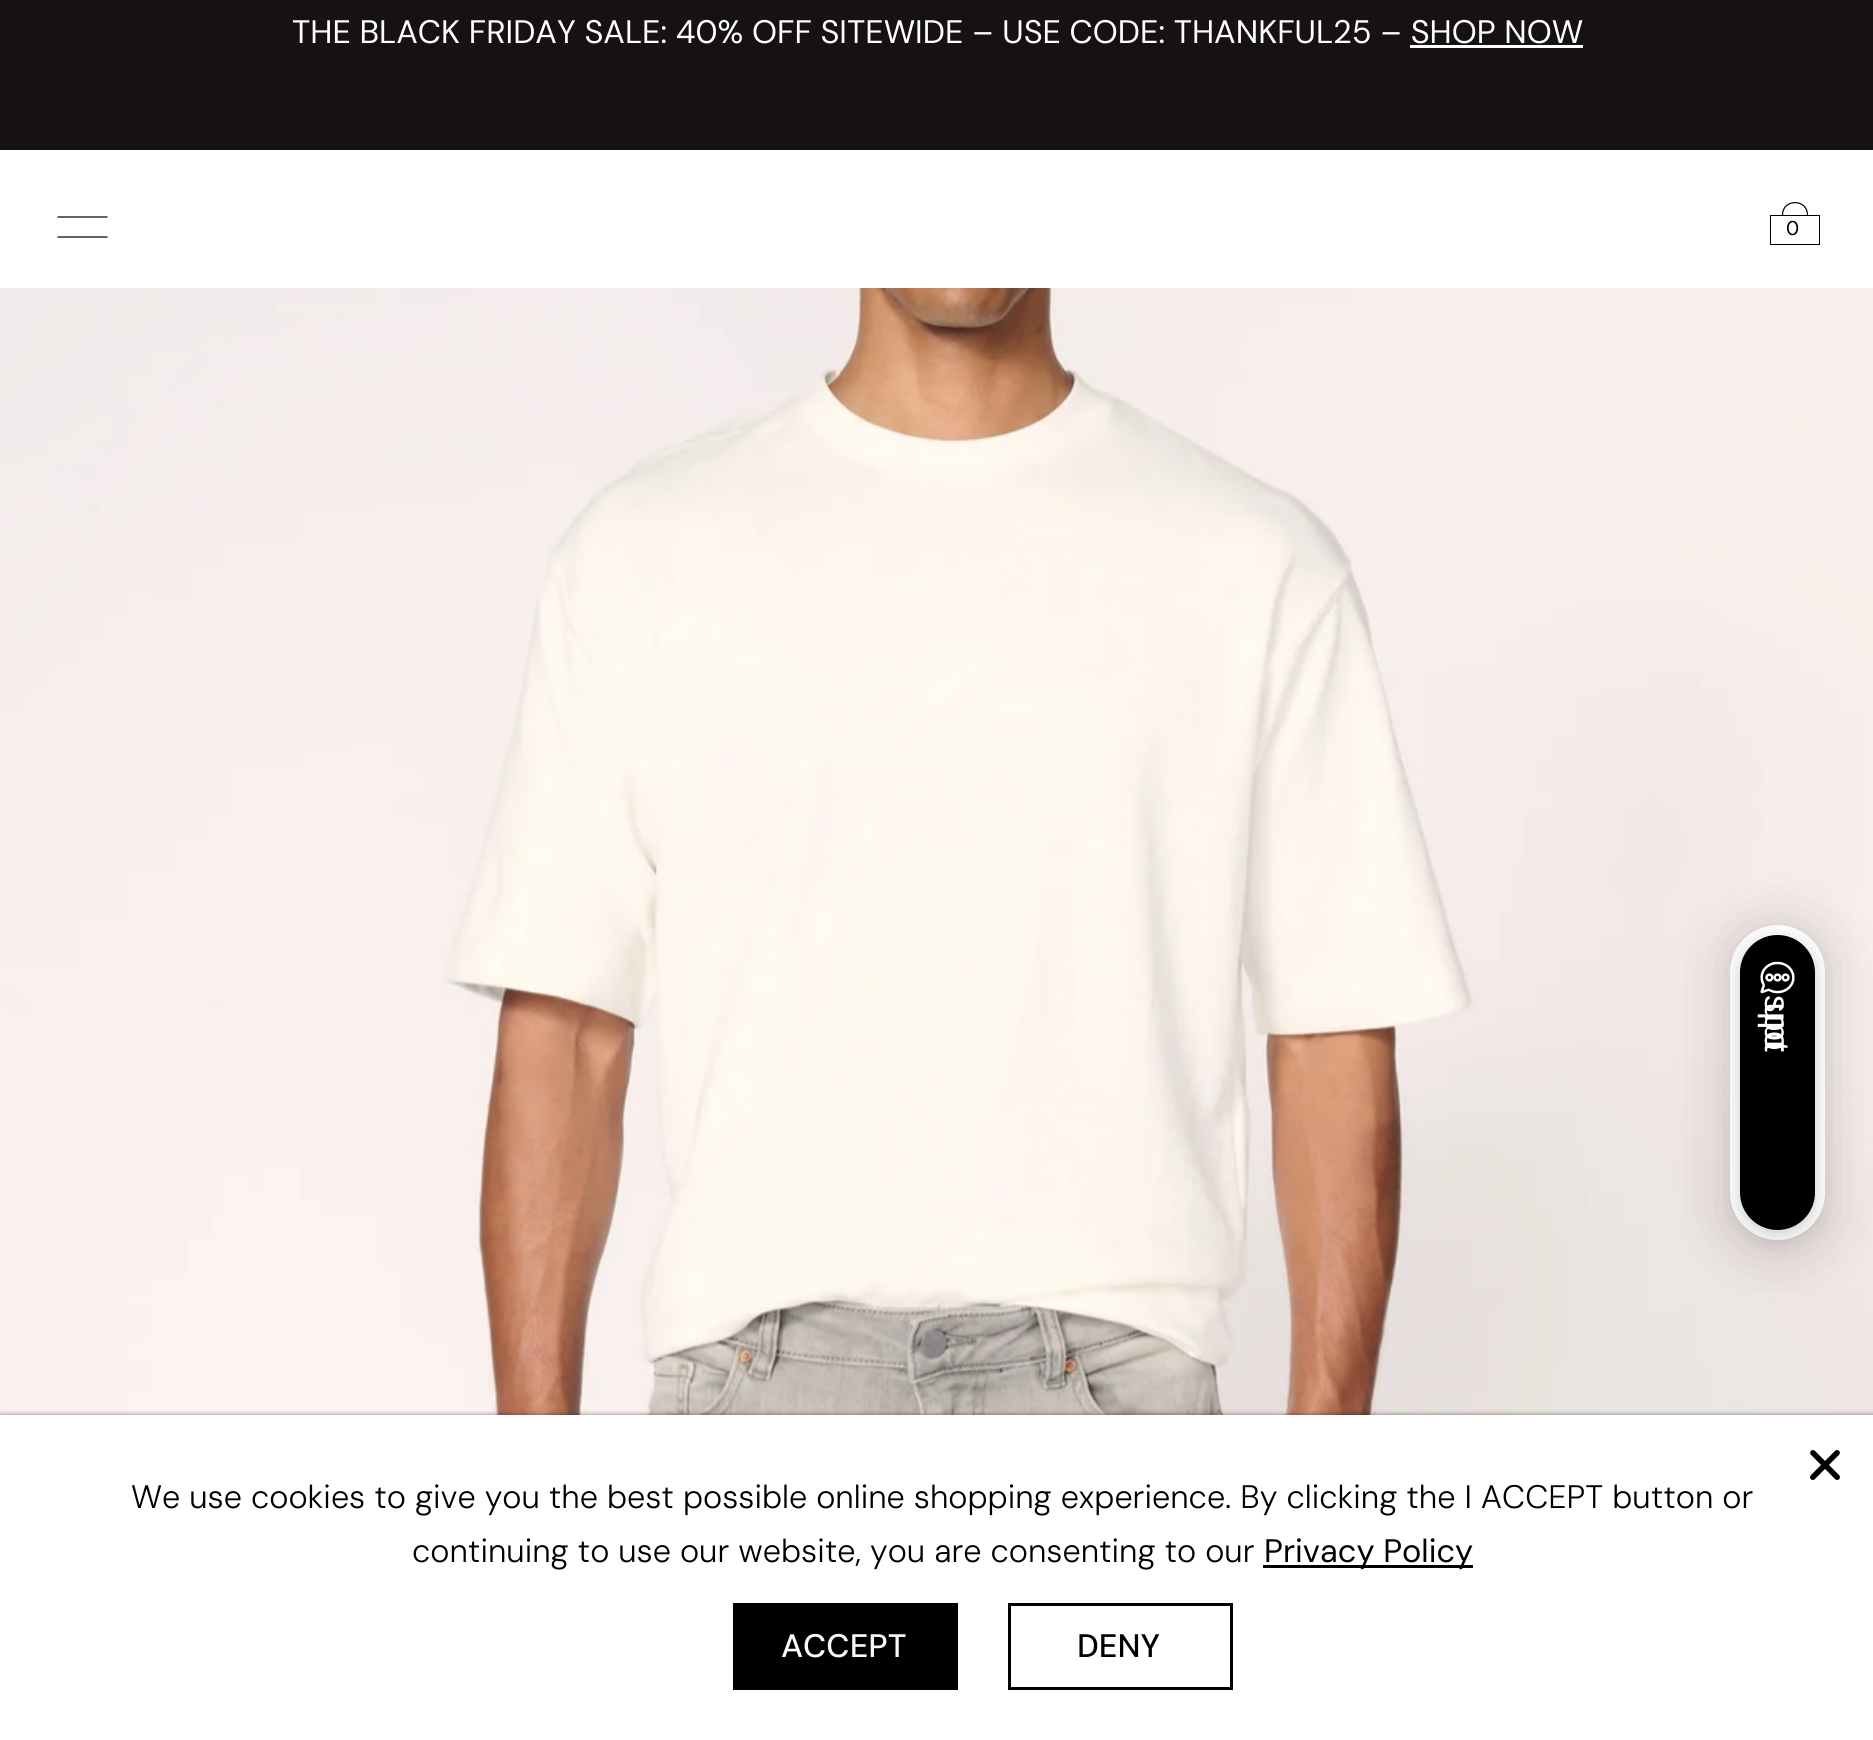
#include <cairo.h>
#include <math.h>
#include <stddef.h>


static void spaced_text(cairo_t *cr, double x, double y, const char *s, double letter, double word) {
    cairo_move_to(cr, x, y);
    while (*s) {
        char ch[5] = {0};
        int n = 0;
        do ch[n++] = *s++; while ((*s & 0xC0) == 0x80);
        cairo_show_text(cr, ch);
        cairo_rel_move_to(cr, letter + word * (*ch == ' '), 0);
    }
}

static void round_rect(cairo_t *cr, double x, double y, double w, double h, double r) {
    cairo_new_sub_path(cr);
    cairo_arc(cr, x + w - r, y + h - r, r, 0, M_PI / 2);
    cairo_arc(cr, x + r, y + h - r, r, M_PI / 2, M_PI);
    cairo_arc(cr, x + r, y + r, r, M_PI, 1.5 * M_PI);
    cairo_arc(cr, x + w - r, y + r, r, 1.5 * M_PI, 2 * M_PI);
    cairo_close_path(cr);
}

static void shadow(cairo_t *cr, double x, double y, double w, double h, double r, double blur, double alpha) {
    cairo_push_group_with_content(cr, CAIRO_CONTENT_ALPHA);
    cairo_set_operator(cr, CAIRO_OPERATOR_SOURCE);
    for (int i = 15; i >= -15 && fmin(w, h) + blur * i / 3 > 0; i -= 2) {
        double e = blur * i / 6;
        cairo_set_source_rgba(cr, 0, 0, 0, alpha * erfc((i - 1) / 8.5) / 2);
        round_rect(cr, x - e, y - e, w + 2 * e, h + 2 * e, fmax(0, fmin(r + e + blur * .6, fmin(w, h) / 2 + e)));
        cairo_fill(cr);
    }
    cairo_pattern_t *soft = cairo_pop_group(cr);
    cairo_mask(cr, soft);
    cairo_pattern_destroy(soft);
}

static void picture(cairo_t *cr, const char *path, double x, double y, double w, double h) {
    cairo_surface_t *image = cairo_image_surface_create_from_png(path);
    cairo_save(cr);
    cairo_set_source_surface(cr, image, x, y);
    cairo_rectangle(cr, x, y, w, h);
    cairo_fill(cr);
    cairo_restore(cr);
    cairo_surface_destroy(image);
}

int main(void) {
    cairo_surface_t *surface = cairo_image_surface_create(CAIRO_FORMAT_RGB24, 1873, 1740);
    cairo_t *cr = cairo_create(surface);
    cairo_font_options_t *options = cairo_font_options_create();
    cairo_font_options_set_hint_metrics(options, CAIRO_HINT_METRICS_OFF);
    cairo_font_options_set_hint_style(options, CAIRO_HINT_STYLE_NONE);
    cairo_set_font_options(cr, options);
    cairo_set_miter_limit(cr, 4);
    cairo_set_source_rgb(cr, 1, 1, 1);
    cairo_paint(cr);
    cairo_set_source_rgb(cr, 0.086, 0.071, 0.071);
    cairo_rectangle(cr, 0, 0, 1873, 150);
    cairo_fill(cr);
    cairo_select_font_face(cr, "DM Sans", CAIRO_FONT_SLANT_NORMAL, CAIRO_FONT_WEIGHT_NORMAL);
    cairo_set_font_size(cr, 32.5);
    cairo_set_source_rgb(cr, 1, 1, 1);
    cairo_move_to(cr, 292, 43);
    cairo_show_text(cr, "THE BLACK FRIDAY SALE: 40% OFF SITEWIDE – USE CODE: THANKFUL25 – SHOP NOW");
    cairo_rectangle(cr, 1410, 45, 173, 3);
    cairo_fill(cr);
    cairo_new_path(cr);
    cairo_move_to(cr, 57.5, 217);
    cairo_line_to(cr, 107.5, 217);
    cairo_move_to(cr, 57.5, 237);
    cairo_line_to(cr, 107.5, 237);
    cairo_set_source_rgb(cr, 0, 0, 0);
    cairo_set_line_width(cr, 1.2);
    cairo_stroke(cr);
    cairo_new_path(cr);
    cairo_move_to(cr, 1782.5, 215);
    cairo_curve_to(cr, 1782.5, 198.5, 1807.5, 198.5, 1807.5, 215);
    cairo_stroke(cr);
    cairo_rectangle(cr, 1770.5, 215.5, 49, 29);
    cairo_set_line_width(cr, 1);
    cairo_stroke(cr);
    cairo_select_font_face(cr, "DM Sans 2", CAIRO_FONT_SLANT_NORMAL, CAIRO_FONT_WEIGHT_NORMAL);
    cairo_set_font_size(cr, 20);
    spaced_text(cr, 1786, 235, "0", 4, 0);
    picture(cr, "img1.png", 0, 288, 1873, 1127);
    cairo_set_source_rgb(cr, 0, 0, 0);
    shadow(cr, 1728, 928, 100, 320, 50, 30, 0.16);
    cairo_set_source_rgb(cr, 1, 1, 1);
    round_rect(cr, 1730, 925, 95, 315, 47.5);
    cairo_fill(cr);
    cairo_set_source_rgb(cr, 0, 0, 0);
    shadow(cr, 1740, 940, 75, 295, 37.5, 10, 0.2);
    cairo_set_source_rgb(cr, 0, 0, 0);
    round_rect(cr, 1740, 935, 75, 295, 37.5);
    cairo_fill(cr);
    picture(cr, "img2.png", 1760, 961, 35, 33);
    cairo_select_font_face(cr, "Liberation Sans", CAIRO_FONT_SLANT_NORMAL, CAIRO_FONT_WEIGHT_NORMAL);
    cairo_set_font_size(cr, 35);
    cairo_set_source_rgb(cr, 1, 1, 1);
    cairo_save(cr);
    cairo_translate(cr, 1765, 995);
    cairo_rotate(cr, 90 * M_PI / 180);
    spaced_text(cr, 0, 0, "support", -10, 0);
    cairo_restore(cr);
    cairo_set_source_rgb(cr, 0, 0, 0);
    shadow(cr, 0, 1415, 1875, 325, 0, 2.5, 0.5);
    cairo_set_source_rgb(cr, 1, 1, 1);
    cairo_rectangle(cr, 0, 1415, 1873, 325);
    cairo_fill(cr);
    picture(cr, "img3.png", 1810, 1450, 30, 30);
    cairo_select_font_face(cr, "DM Sans Light", CAIRO_FONT_SLANT_NORMAL, CAIRO_FONT_WEIGHT_NORMAL);
    cairo_set_font_size(cr, 32.5);
    cairo_set_source_rgb(cr, 0, 0, 0);
    cairo_move_to(cr, 131, 1508);
    cairo_show_text(cr, "We use cookies to give you the best possible online shopping experience. By clicking the I ACCEPT button or");
    cairo_move_to(cr, 412, 1562);
    cairo_show_text(cr, "continuing to use our website, you are consenting to our");
    cairo_rectangle(cr, 1263, 1565, 210, 3);
    cairo_fill(cr);
    cairo_select_font_face(cr, "DM Sans", CAIRO_FONT_SLANT_NORMAL, CAIRO_FONT_WEIGHT_NORMAL);
    cairo_move_to(cr, 1264, 1562);
    cairo_show_text(cr, "Privacy Policy");
    cairo_rectangle(cr, 733, 1603, 225, 87);
    cairo_fill(cr);
    cairo_select_font_face(cr, "DM Sans Medium", CAIRO_FONT_SLANT_NORMAL, CAIRO_FONT_WEIGHT_NORMAL);
    cairo_set_source_rgb(cr, 0.973, 0.973, 0.973);
    cairo_move_to(cr, 781, 1657);
    cairo_show_text(cr, "ACCEPT");
    cairo_rectangle(cr, 1009.5, 1604.5, 222, 84);
    cairo_set_source_rgb(cr, 0, 0, 0);
    cairo_set_line_width(cr, 3);
    cairo_stroke(cr);
    cairo_move_to(cr, 1077, 1657);
    cairo_show_text(cr, "DENY");
    cairo_surface_write_to_png(surface, "page.png");
    cairo_font_options_destroy(options);
    cairo_destroy(cr);
    cairo_surface_destroy(surface);
    return 0;
}
